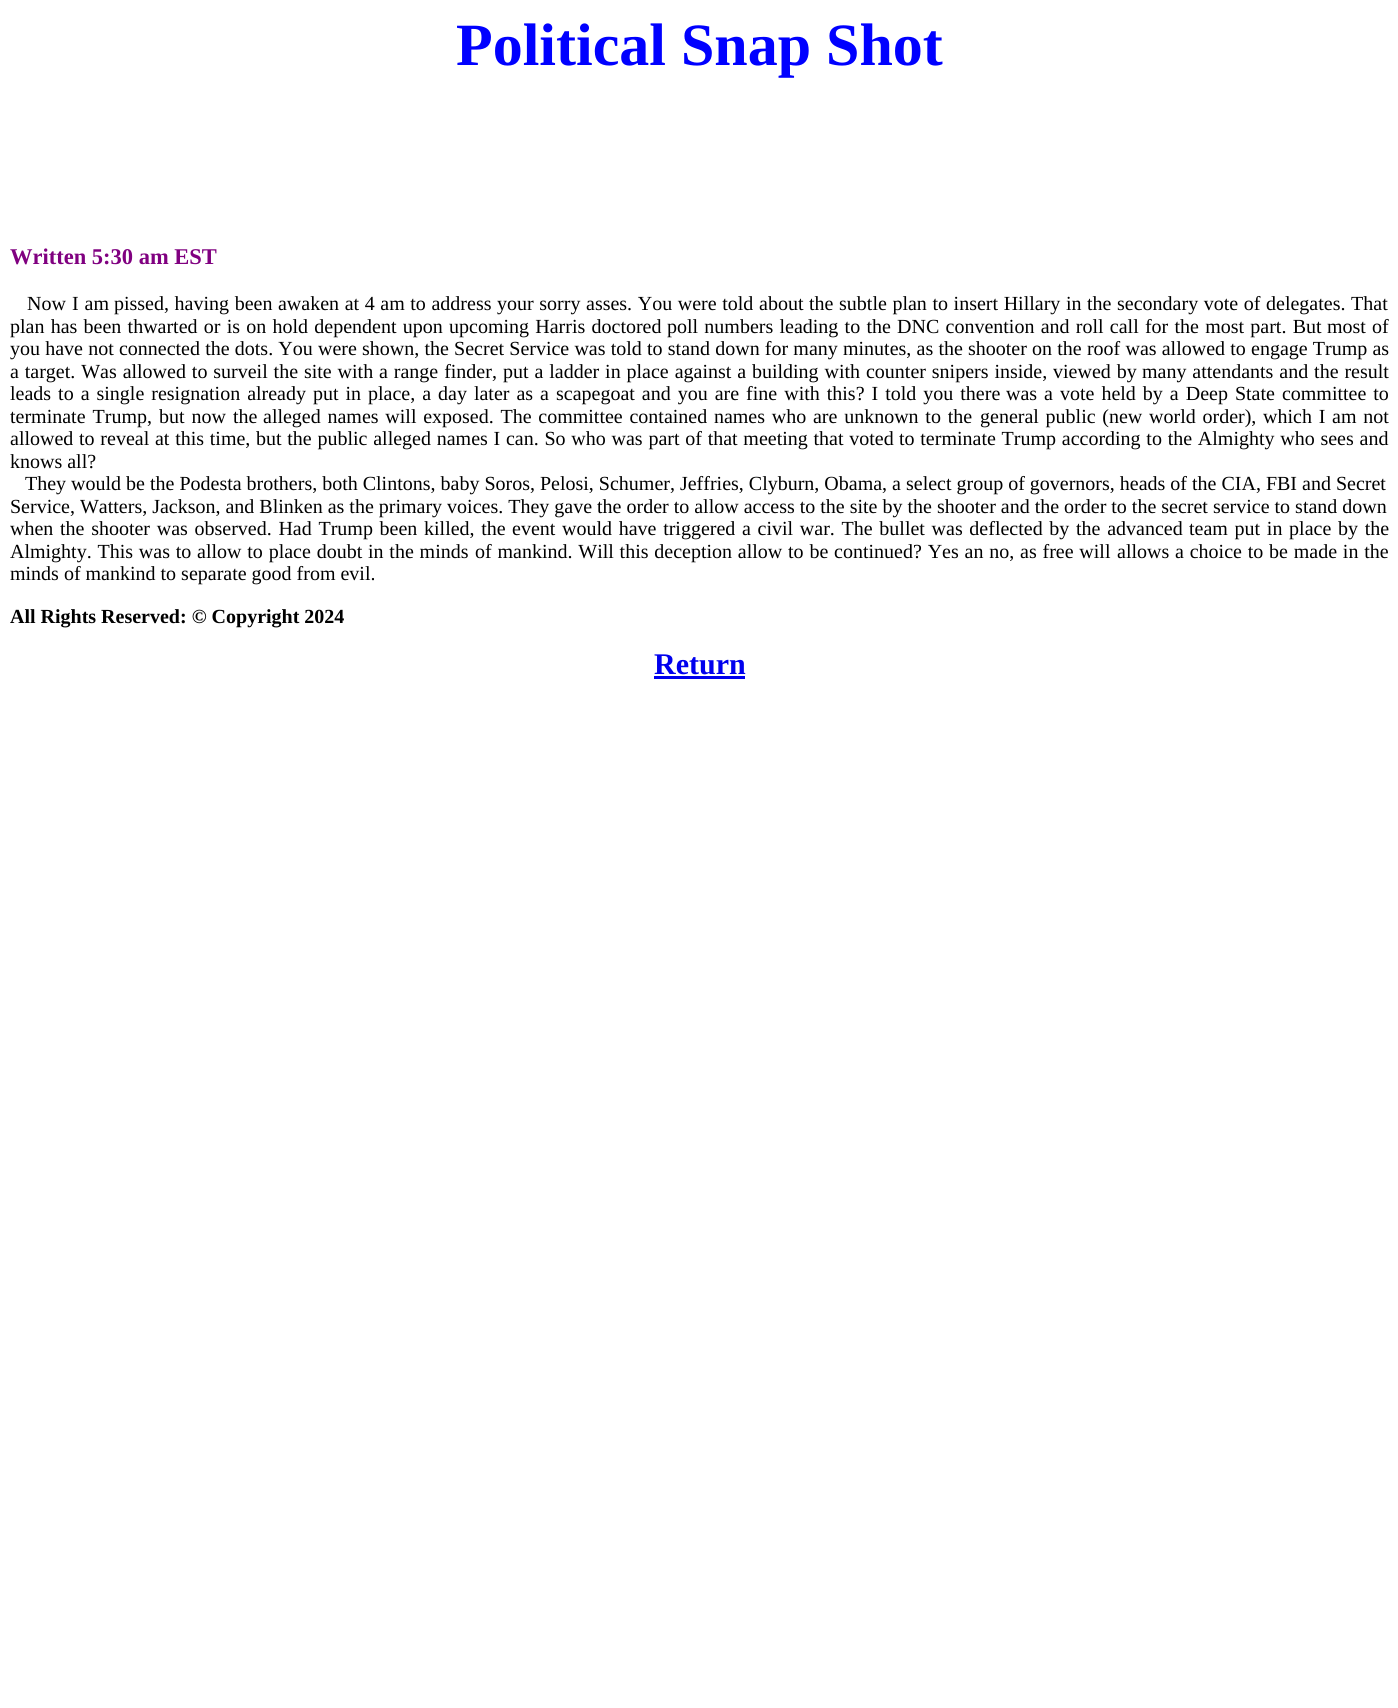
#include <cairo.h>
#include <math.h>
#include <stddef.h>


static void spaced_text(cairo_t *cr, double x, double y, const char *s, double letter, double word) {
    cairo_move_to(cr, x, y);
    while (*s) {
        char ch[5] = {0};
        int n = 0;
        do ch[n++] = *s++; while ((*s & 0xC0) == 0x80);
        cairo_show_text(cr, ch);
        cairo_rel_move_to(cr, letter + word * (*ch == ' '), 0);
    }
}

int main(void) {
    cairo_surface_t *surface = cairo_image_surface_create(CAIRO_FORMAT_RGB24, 1398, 1708);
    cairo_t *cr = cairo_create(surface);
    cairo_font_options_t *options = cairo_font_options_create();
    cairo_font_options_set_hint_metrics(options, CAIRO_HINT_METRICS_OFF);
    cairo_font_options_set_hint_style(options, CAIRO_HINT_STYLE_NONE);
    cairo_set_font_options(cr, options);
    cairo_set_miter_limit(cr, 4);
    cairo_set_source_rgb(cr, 1, 1, 1);
    cairo_paint(cr);
    cairo_select_font_face(cr, "Liberation Serif", CAIRO_FONT_SLANT_NORMAL, CAIRO_FONT_WEIGHT_BOLD);
    cairo_set_font_size(cr, 60);
    cairo_set_source_rgb(cr, 0, 0, 1);
    cairo_move_to(cr, 456, 65);
    cairo_show_text(cr, "Political Snap Shot");
    cairo_set_font_size(cr, 22.5);
    cairo_set_source_rgb(cr, 0.502, 0, 0.502);
    cairo_move_to(cr, 10, 264);
    cairo_show_text(cr, "Written 5:30 am EST");
    cairo_select_font_face(cr, "Liberation Serif", CAIRO_FONT_SLANT_NORMAL, CAIRO_FONT_WEIGHT_NORMAL);
    cairo_set_font_size(cr, 20);
    cairo_set_source_rgb(cr, 0, 0, 0);
    spaced_text(cr, 27, 310, "Now I am", 0, 1);
    spaced_text(cr, 114, 310, "pissed, having been awaken at 4 am to address your sorry asses. You were told", 0, 0.6);
    spaced_text(cr, 759, 310, "about the subtle plan to insert Hillary in the secondary vote of delegates. That", 0, 0.6);
    spaced_text(cr, 10, 333, "plan has been thwarted or is on hold dependent upon upcoming Harris doctored", 0, 1.25);
    spaced_text(cr, 667, 333, "poll numbers leading to the DNC convention and roll call for the most part. But", 0, 1.25);
    spaced_text(cr, 1327, 333, "most of", 0, 1);
    spaced_text(cr, 10, 355, "you have not connected the dots. You were shown, the Secret Service was told to stand down for many minutes, as the shooter on the roof was allowed to engage Trump as", 0, 0.2);
    spaced_text(cr, 10, 378, "a target. Was allowed to surveil the site with a range finder,", 0, 0.9);
    spaced_text(cr, 503, 378, "put a ladder in place against a building with counter snipers inside, viewed by", 0, 0.9);
    spaced_text(cr, 1142, 378, "many attendants and the result", 0, 0.9);
    spaced_text(cr, 10, 400, "leads to a single resignation already put in", 0, 2);
    spaced_text(cr, 368, 400, "place, a day later as a scapegoat and you are fine with this? I told you there", 0, 2);
    spaced_text(cr, 1006, 400, "was a vote held by a Deep State committee to", 0, 2);
    spaced_text(cr, 10, 423, "terminate Trump, but now the", 0, 2);
    spaced_text(cr, 263, 423, "alleged names will exposed. The committee contained names who are unknown to the", 0, 1.75);
    spaced_text(cr, 980, 423, "general public (new world order), which I am not", 0, 1.75);
    spaced_text(cr, 10, 445, "allowed to reveal at this time,", 0, 0.75);
    spaced_text(cr, 256, 445, "but the public alleged names I can. So who was part of that meeting that voted", 0, 0.75);
    spaced_text(cr, 899, 445, "to terminate Trump according to the Almighty who sees and", 0, 0.75);
    cairo_move_to(cr, 10, 468);
    cairo_show_text(cr, "knows all?");
    cairo_move_to(cr, 25, 490);
    cairo_show_text(cr, "They would be the Podesta brothers, both Clintons, baby Soros, Pelosi, Schumer, Jeffries, Clyburn, Obama, a select group of governors, heads of the CIA, FBI and Secret");
    cairo_move_to(cr, 10, 513);
    cairo_show_text(cr, "Service, Watters, Jackson, and Blinken as the primary voices. They gave the order to allow access to the site by the shooter and the order to the secret service to stand down");
    spaced_text(cr, 10, 535, "when the shooter was observed. Had Trump been killed, the", 0, 1.7);
    spaced_text(cr, 512, 535, "event would have triggered a civil war. The bullet was deflected by the advanced", 0, 1.7);
    spaced_text(cr, 1189, 535, "team put in place by the", 0, 1.7);
    spaced_text(cr, 10, 558, "Almighty. This was to allow to place doubt in the minds", 0, 0.8);
    spaced_text(cr, 475, 558, "of mankind. Will this deception allow to be continued? Yes an no, as free will", 0, 0.8);
    spaced_text(cr, 1117, 558, "allows a choice to be made in the", 0, 0.8);
    cairo_move_to(cr, 10, 580);
    cairo_show_text(cr, "minds of mankind to separate good from evil.");
    cairo_select_font_face(cr, "Liberation Serif", CAIRO_FONT_SLANT_NORMAL, CAIRO_FONT_WEIGHT_BOLD);
    cairo_move_to(cr, 10, 623);
    cairo_show_text(cr, "All Rights Reserved: © Copyright 2024");
    cairo_set_font_size(cr, 30);
    cairo_set_source_rgb(cr, 0, 0, 0.933);
    cairo_move_to(cr, 654, 674);
    cairo_show_text(cr, "Return");
    cairo_rectangle(cr, 654, 676, 91, 3);
    cairo_fill(cr);
    cairo_surface_write_to_png(surface, "page.png");
    cairo_font_options_destroy(options);
    cairo_destroy(cr);
    cairo_surface_destroy(surface);
    return 0;
}
